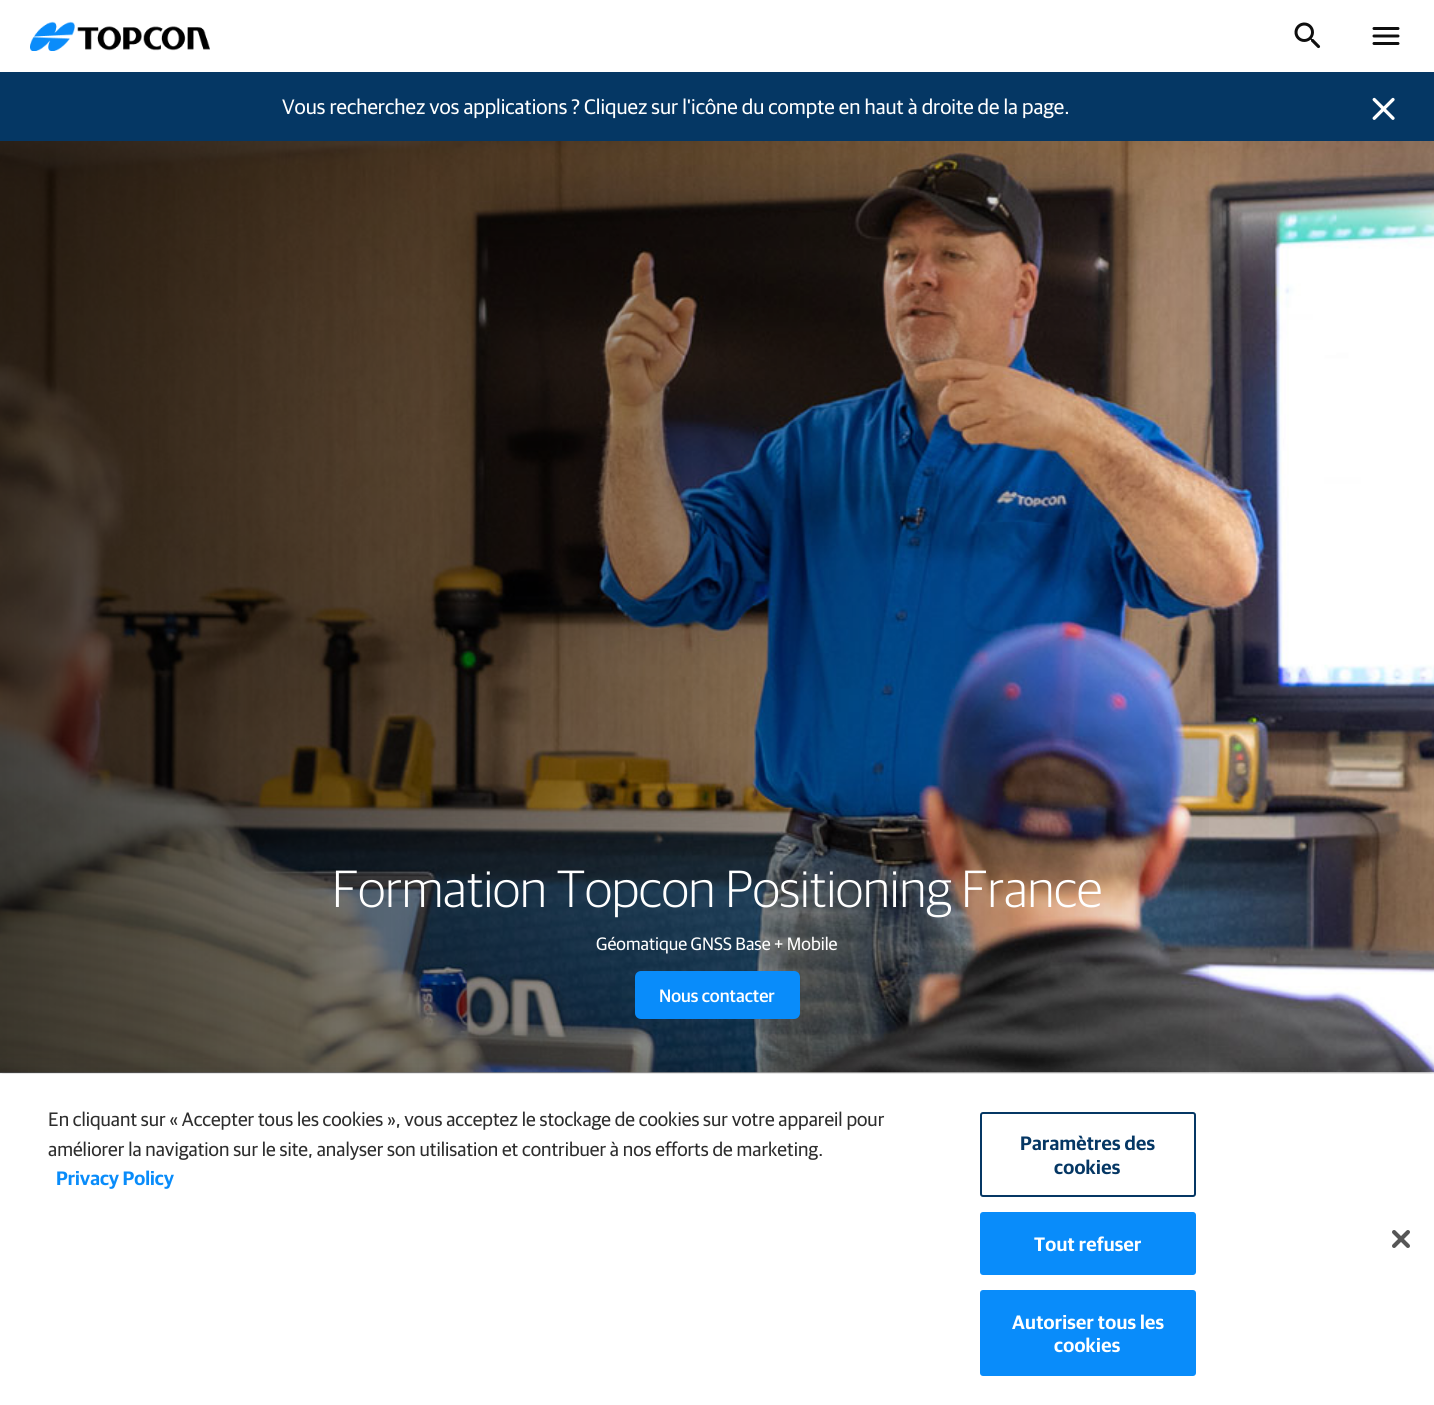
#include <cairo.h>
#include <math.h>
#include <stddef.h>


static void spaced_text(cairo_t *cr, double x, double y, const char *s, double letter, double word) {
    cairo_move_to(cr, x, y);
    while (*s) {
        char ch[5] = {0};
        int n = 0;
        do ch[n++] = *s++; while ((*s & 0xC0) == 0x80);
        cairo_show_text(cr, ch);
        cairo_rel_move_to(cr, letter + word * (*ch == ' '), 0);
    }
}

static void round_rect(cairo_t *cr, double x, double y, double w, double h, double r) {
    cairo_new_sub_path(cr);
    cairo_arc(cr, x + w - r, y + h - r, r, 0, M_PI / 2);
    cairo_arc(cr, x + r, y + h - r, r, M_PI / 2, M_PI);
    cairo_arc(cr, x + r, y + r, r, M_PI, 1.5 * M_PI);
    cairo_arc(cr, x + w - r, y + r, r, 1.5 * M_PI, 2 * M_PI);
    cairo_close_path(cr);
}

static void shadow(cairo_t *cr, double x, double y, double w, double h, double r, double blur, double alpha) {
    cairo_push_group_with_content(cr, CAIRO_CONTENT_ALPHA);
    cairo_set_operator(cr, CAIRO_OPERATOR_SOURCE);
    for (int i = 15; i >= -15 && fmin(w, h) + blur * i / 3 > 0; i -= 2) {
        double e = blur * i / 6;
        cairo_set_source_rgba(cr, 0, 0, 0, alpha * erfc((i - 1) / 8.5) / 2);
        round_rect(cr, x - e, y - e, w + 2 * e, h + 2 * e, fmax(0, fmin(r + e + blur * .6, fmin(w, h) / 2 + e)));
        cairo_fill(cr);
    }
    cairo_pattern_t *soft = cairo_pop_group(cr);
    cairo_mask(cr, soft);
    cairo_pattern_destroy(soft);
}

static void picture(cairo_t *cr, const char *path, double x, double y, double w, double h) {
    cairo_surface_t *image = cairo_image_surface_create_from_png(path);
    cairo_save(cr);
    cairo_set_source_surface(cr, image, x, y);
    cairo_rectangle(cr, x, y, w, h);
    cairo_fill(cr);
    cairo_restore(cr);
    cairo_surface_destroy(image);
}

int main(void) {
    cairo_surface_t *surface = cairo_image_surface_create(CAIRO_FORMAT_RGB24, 1434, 1405);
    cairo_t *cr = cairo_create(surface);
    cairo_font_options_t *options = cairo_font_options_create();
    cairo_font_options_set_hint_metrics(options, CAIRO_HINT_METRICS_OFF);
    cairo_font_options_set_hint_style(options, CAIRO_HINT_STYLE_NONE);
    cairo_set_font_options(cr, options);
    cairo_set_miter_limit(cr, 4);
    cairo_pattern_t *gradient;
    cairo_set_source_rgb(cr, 1, 1, 1);
    cairo_paint(cr);
    picture(cr, "img1.png", 30, 21, 180, 30);
    picture(cr, "img2.png", 1294, 22, 27, 27);
    picture(cr, "img3.png", 1372, 27, 28, 18);
    cairo_set_source_rgb(cr, 0.02, 0.216, 0.392);
    cairo_rectangle(cr, 0, 72, 1434, 69);
    cairo_fill(cr);
    cairo_select_font_face(cr, "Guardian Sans", CAIRO_FONT_SLANT_NORMAL, CAIRO_FONT_WEIGHT_NORMAL);
    cairo_set_font_size(cr, 21);
    cairo_set_source_rgb(cr, 1, 1, 1);
    cairo_move_to(cr, 282, 114);
    cairo_show_text(cr, "Vous recherchez vos applications ? Cliquez sur l'icône du compte en haut à droite de la page.");
    picture(cr, "img4.png", 1372, 97, 23, 23);
    picture(cr, "img5.png", 0, 141, 1434, 932);
    gradient = cairo_pattern_create_linear(0, 607, 1434, 607);
    cairo_pattern_add_color_stop_rgba(gradient, 0, 0, 0, 0, 0.7);
    cairo_pattern_add_color_stop_rgba(gradient, 0.87, 0, 0, 0, 0);
    cairo_set_source(cr, gradient);
    cairo_pattern_destroy(gradient);
    cairo_rectangle(cr, 0, 141, 1209, 932);
    cairo_fill(cr);
    cairo_select_font_face(cr, "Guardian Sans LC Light", CAIRO_FONT_SLANT_NORMAL, CAIRO_FONT_WEIGHT_NORMAL);
    cairo_set_font_size(cr, 52.5);
    cairo_set_source_rgb(cr, 1, 1, 1);
    cairo_move_to(cr, 332, 907);
    cairo_show_text(cr, "Formation Topcon Positioning France");
    cairo_select_font_face(cr, "Guardian Sans", CAIRO_FONT_SLANT_NORMAL, CAIRO_FONT_WEIGHT_NORMAL);
    cairo_set_font_size(cr, 18);
    cairo_move_to(cr, 596, 950);
    cairo_show_text(cr, "Géomatique GNSS Base + Mobile");
    cairo_set_source_rgb(cr, 0.039, 0.549, 0.98);
    round_rect(cr, 635, 971, 165, 48, 6);
    cairo_fill(cr);
    cairo_select_font_face(cr, "Guardian Sans Medium", CAIRO_FONT_SLANT_NORMAL, CAIRO_FONT_WEIGHT_NORMAL);
    cairo_set_source_rgb(cr, 1, 1, 1);
    cairo_move_to(cr, 659, 1002);
    cairo_show_text(cr, "Nous contacter");
    cairo_set_source_rgb(cr, 0, 0, 0);
    shadow(cr, 0, 1074, 1434, 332, 0, 13.5, 0.2);
    cairo_set_source_rgb(cr, 1, 1, 1);
    cairo_rectangle(cr, 0, 1074, 1434, 331);
    cairo_fill(cr);
    cairo_select_font_face(cr, "Guardian Sans", CAIRO_FONT_SLANT_NORMAL, CAIRO_FONT_WEIGHT_NORMAL);
    cairo_set_font_size(cr, 19.5);
    cairo_set_source_rgb(cr, 0.176, 0.176, 0.176);
    cairo_move_to(cr, 48, 1126);
    cairo_show_text(cr, "En cliquant sur « Accepter tous les cookies », vous acceptez le stockage de cookies sur votre appareil pour");
    cairo_move_to(cr, 48, 1156);
    cairo_show_text(cr, "améliorer la navigation sur le site, analyser son utilisation et contribuer à nos efforts de marketing.");
    cairo_select_font_face(cr, "Guardian Sans SemiBold", CAIRO_FONT_SLANT_NORMAL, CAIRO_FONT_WEIGHT_NORMAL);
    cairo_set_source_rgb(cr, 0.039, 0.549, 0.98);
    cairo_move_to(cr, 56, 1185);
    cairo_show_text(cr, "Privacy Policy");
    round_rect(cr, 981, 1113, 214, 83, 2);
    cairo_set_source_rgb(cr, 0.02, 0.216, 0.392);
    cairo_stroke(cr);
    spaced_text(cr, 1020, 1150, "Paramètres des", 0.25, 0);
    spaced_text(cr, 1054, 1174, "cookies", 0.25, 0);
    cairo_set_source_rgb(cr, 0.039, 0.549, 0.98);
    round_rect(cr, 981, 1213, 214, 61, 2);
    cairo_fill_preserve(cr);
    cairo_stroke(cr);
    cairo_set_source_rgb(cr, 1, 1, 1);
    spaced_text(cr, 1034, 1251, "Tout refuser", 0.25, 0);
    cairo_set_source_rgb(cr, 0.039, 0.549, 0.98);
    round_rect(cr, 981, 1291, 214, 84, 2);
    cairo_fill_preserve(cr);
    cairo_stroke(cr);
    cairo_set_source_rgb(cr, 1, 1, 1);
    spaced_text(cr, 1012, 1329, "Autoriser tous les", 0.25, 0);
    spaced_text(cr, 1054, 1352, "cookies", 0.25, 0);
    picture(cr, "img6.png", 1392, 1230, 18, 18);
    cairo_surface_write_to_png(surface, "page.png");
    cairo_font_options_destroy(options);
    cairo_destroy(cr);
    cairo_surface_destroy(surface);
    return 0;
}
